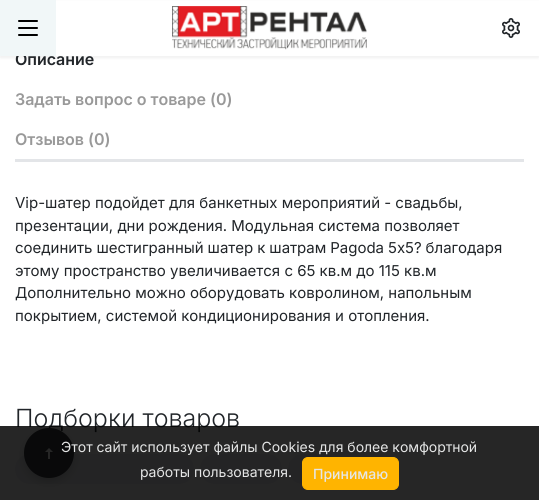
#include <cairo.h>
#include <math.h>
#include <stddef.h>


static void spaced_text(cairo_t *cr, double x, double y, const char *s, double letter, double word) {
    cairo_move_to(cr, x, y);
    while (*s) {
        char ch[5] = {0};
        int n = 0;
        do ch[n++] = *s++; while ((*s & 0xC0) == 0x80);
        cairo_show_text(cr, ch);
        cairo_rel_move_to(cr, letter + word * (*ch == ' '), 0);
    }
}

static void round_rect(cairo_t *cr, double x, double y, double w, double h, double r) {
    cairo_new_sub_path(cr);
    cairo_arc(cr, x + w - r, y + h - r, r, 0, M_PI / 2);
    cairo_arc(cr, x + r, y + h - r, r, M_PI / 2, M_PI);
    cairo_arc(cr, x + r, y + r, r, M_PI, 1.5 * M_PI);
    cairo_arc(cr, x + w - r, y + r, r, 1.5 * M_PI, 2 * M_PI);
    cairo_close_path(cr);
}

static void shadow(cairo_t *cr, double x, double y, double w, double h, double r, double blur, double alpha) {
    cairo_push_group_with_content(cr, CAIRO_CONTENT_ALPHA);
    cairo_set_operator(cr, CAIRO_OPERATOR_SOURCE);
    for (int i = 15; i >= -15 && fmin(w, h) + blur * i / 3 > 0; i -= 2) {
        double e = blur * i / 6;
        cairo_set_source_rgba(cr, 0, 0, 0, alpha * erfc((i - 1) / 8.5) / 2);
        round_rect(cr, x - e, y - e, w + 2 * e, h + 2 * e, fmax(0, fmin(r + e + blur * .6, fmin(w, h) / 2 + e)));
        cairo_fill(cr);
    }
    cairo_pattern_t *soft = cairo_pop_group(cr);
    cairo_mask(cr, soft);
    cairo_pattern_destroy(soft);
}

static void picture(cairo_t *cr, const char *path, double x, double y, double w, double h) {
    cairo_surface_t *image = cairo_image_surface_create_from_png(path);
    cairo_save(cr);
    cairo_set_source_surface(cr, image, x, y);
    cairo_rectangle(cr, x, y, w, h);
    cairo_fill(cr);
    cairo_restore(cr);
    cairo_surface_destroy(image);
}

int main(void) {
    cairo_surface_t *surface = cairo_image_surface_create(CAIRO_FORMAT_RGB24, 539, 500);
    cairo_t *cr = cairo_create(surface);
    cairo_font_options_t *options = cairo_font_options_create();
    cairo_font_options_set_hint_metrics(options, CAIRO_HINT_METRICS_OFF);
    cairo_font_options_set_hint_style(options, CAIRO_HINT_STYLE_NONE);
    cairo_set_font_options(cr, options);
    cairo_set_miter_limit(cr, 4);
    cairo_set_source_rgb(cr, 1, 1, 1);
    cairo_paint(cr);
    cairo_set_source_rgb(cr, 0, 0, 0);
    shadow(cr, 0, 2, 539, 56, 0, 1.5, 0.06);
    cairo_select_font_face(cr, "Inter SemiBold", CAIRO_FONT_SLANT_NORMAL, CAIRO_FONT_WEIGHT_NORMAL);
    cairo_set_font_size(cr, 16);
    cairo_set_source_rgb(cr, 0.129, 0.145, 0.161);
    cairo_move_to(cr, 15, 65);
    cairo_show_text(cr, "Описание");
    cairo_set_source_rgb(cr, 1, 1, 1);
    cairo_rectangle(cr, 56, 1, 483, 55);
    cairo_fill(cr);
    cairo_set_source_rgb(cr, 0.945, 0.965, 0.969);
    cairo_rectangle(cr, 0, 0, 56, 56);
    cairo_fill(cr);
    cairo_set_source_rgb(cr, 0, 0, 0);
    round_rect(cr, 18, 20, 20, 2, 1);
    cairo_fill(cr);
    round_rect(cr, 18, 27, 20, 2, 1);
    cairo_fill(cr);
    round_rect(cr, 18, 34, 20, 2, 1);
    cairo_fill(cr);
    picture(cr, "img1.png", 172, 6, 195, 44);
    picture(cr, "img2.png", 502, 18, 18, 20);
    cairo_set_source_rgb(cr, 0.89, 0.898, 0.91);
    cairo_rectangle(cr, 15, 159, 509, 3);
    cairo_fill(cr);
    cairo_set_source_rgb(cr, 0.6, 0.6, 0.6);
    cairo_move_to(cr, 15, 105);
    cairo_show_text(cr, "Задать вопрос о товаре (0)");
    cairo_move_to(cr, 15, 145);
    cairo_show_text(cr, "Отзывов (0)");
    cairo_select_font_face(cr, "Inter", CAIRO_FONT_SLANT_NORMAL, CAIRO_FONT_WEIGHT_NORMAL);
    cairo_set_font_size(cr, 15);
    cairo_set_source_rgb(cr, 0.129, 0.145, 0.161);
    cairo_move_to(cr, 15, 208);
    cairo_show_text(cr, "Vip-шатер подойдет для банкетных мероприятий - свадьбы,");
    cairo_move_to(cr, 15, 231);
    cairo_show_text(cr, "презентации, дни рождения. Модульная система позволяет");
    spaced_text(cr, 15, 253, "соединить шестигранный шатер к шатрам Pagoda 5x5? благодаря", 0, -0.25);
    cairo_move_to(cr, 15, 276);
    cairo_show_text(cr, "этому пространство увеличивается с 65 кв.м до 115 кв.м");
    cairo_move_to(cr, 15, 298);
    cairo_show_text(cr, "Дополнительно можно оборудовать ковролином, напольным");
    cairo_move_to(cr, 15, 321);
    cairo_show_text(cr, "покрытием, системой кондиционирования и отопления.");
    cairo_select_font_face(cr, "Inter Light", CAIRO_FONT_SLANT_NORMAL, CAIRO_FONT_WEIGHT_NORMAL);
    cairo_set_font_size(cr, 25);
    cairo_move_to(cr, 15, 427);
    cairo_show_text(cr, "Подборки товаров");
    cairo_set_source_rgb(cr, 0.949, 0.953, 0.961);
    round_rect(cr, 15, 454, 179, 30, 15);
    cairo_fill(cr);
    round_rect(cr, 200, 454, 82, 30, 15);
    cairo_fill(cr);
    round_rect(cr, 288, 454, 51, 30, 15);
    cairo_fill(cr);
    cairo_set_source_rgb(cr, 0, 0, 0);
    shadow(cr, 24, 432, 50, 50, 25, 4, 0.15);
    cairo_set_source_rgb(cr, 0.227, 0.235, 0.251);
    cairo_arc(cr, 49, 453, 25, 0, 2 * M_PI);
    cairo_fill(cr);
    picture(cr, "img3.png", 45, 448, 8, 11);
    cairo_set_source_rgba(cr, 0, 0, 0, 0.85);
    cairo_rectangle(cr, 0, 426, 539, 74);
    cairo_fill(cr);
    cairo_select_font_face(cr, "Inter", CAIRO_FONT_SLANT_NORMAL, CAIRO_FONT_WEIGHT_NORMAL);
    cairo_set_font_size(cr, 14);
    cairo_set_source_rgb(cr, 0.898, 0.902, 0.902);
    cairo_move_to(cr, 61, 452);
    cairo_show_text(cr, "Этот сайт использует файлы Cookies для более комфортной");
    cairo_move_to(cr, 140, 477);
    cairo_show_text(cr, "работы пользователя.");
    cairo_set_source_rgb(cr, 1, 0.706, 0);
    round_rect(cr, 302.5, 457.5, 96, 32, 5.5);
    cairo_fill_preserve(cr);
    cairo_set_line_width(cr, 1);
    cairo_stroke(cr);
    cairo_select_font_face(cr, "Inter Medium", CAIRO_FONT_SLANT_NORMAL, CAIRO_FONT_WEIGHT_NORMAL);
    cairo_set_source_rgb(cr, 0.898, 0.902, 0.902);
    cairo_move_to(cr, 313, 479);
    cairo_show_text(cr, "Принимаю");
    cairo_surface_write_to_png(surface, "page.png");
    cairo_font_options_destroy(options);
    cairo_destroy(cr);
    cairo_surface_destroy(surface);
    return 0;
}
